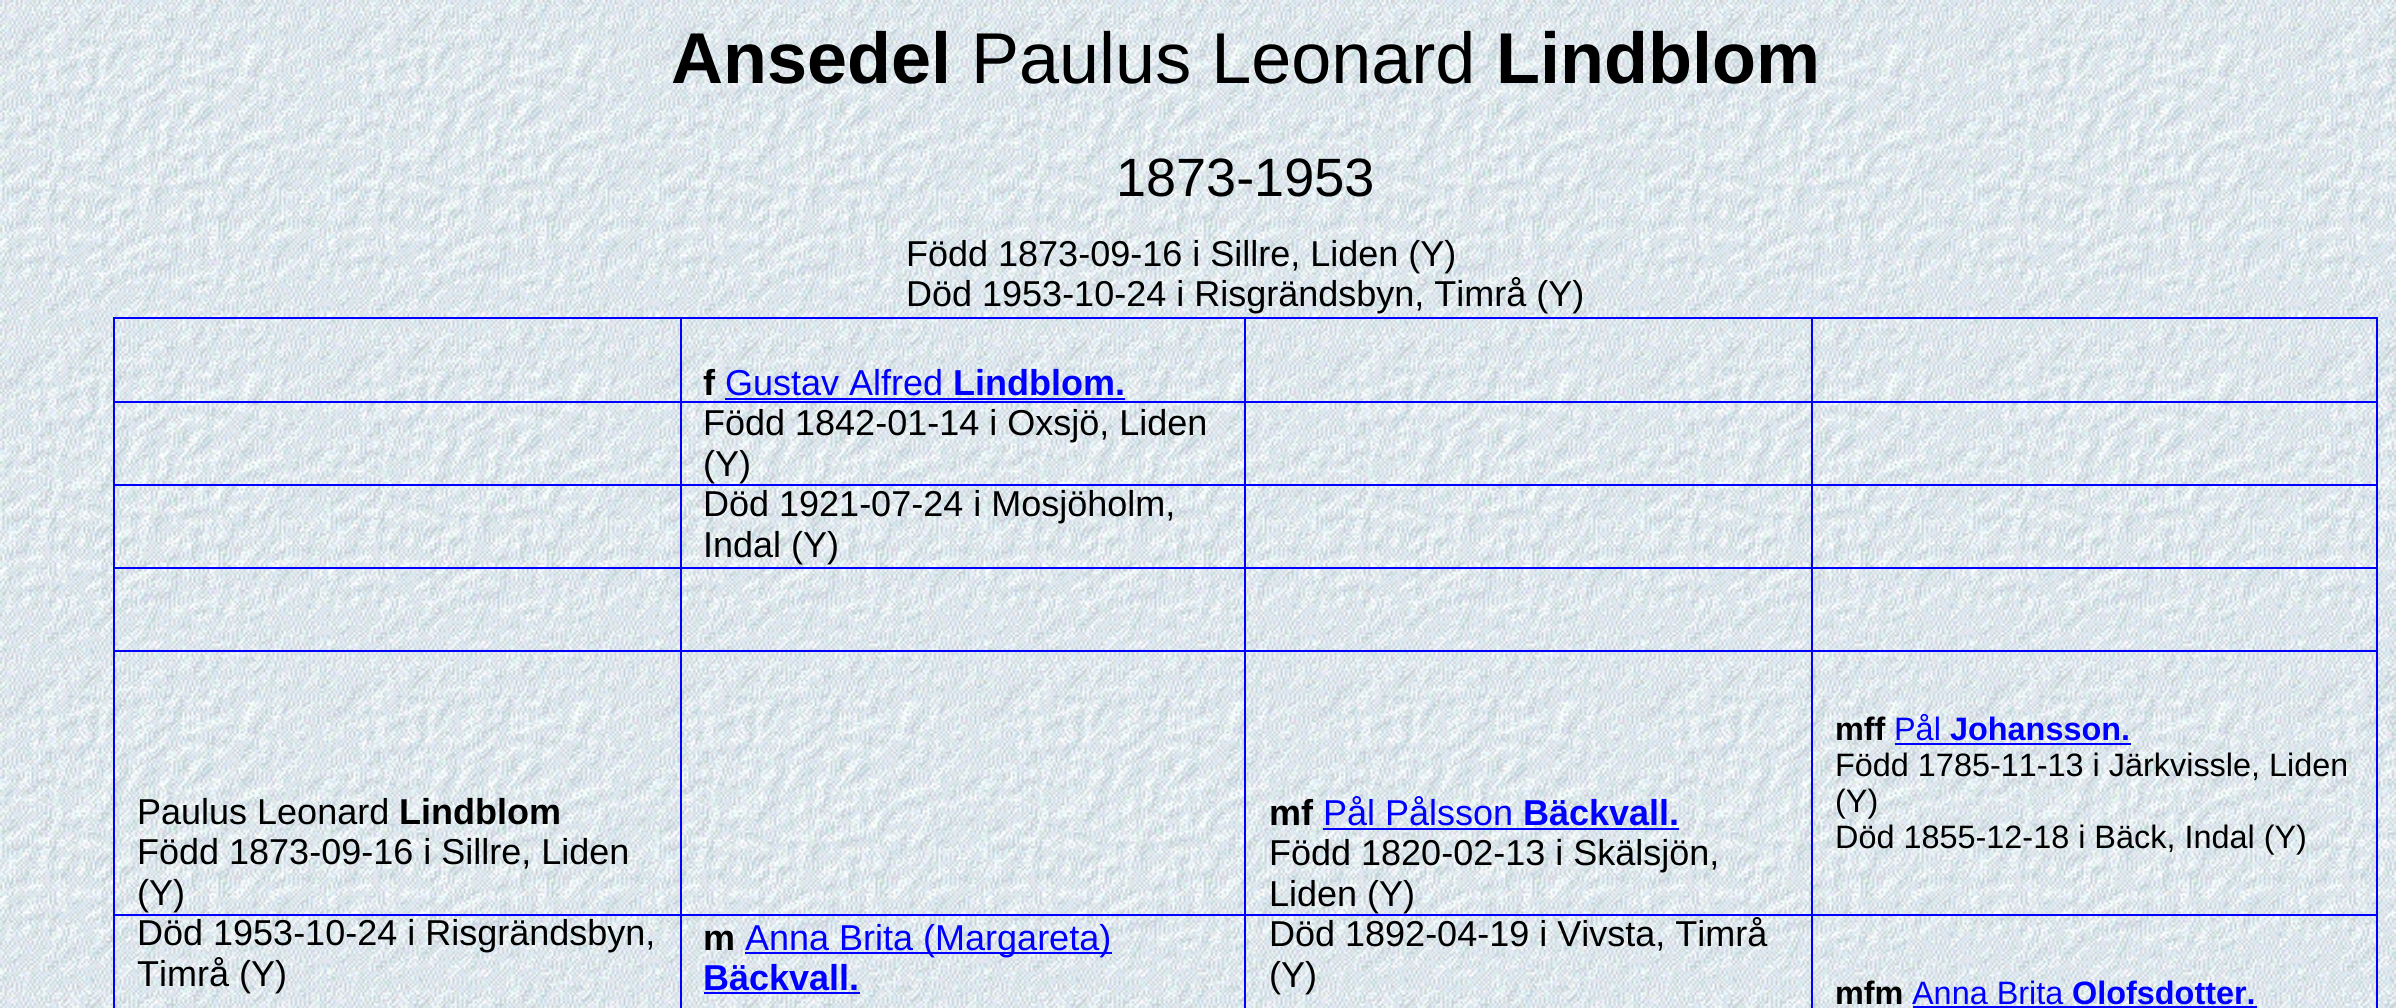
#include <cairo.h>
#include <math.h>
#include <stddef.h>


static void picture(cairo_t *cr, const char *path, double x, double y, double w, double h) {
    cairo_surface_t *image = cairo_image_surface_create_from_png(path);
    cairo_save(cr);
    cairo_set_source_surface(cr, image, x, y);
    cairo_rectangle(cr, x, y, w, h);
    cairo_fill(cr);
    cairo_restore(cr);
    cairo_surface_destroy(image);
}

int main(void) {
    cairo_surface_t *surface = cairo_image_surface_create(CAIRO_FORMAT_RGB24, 2396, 1008);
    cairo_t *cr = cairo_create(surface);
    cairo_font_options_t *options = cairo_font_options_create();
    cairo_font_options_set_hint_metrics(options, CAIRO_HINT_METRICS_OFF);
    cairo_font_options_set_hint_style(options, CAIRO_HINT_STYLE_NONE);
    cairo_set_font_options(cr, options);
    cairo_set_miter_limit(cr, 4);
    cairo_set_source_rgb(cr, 1, 1, 1);
    cairo_paint(cr);
    picture(cr, "img1.png", 0, 0, 2396, 1008);
    cairo_select_font_face(cr, "Liberation Sans", CAIRO_FONT_SLANT_NORMAL, CAIRO_FONT_WEIGHT_BOLD);
    cairo_set_font_size(cr, 72);
    cairo_set_source_rgb(cr, 0, 0, 0);
    cairo_move_to(cr, 671, 83);
    cairo_show_text(cr, "Ansedel");
    cairo_select_font_face(cr, "Liberation Sans", CAIRO_FONT_SLANT_NORMAL, CAIRO_FONT_WEIGHT_NORMAL);
    cairo_move_to(cr, 971, 83);
    cairo_show_text(cr, "Paulus Leonard");
    cairo_select_font_face(cr, "Liberation Sans", CAIRO_FONT_SLANT_NORMAL, CAIRO_FONT_WEIGHT_BOLD);
    cairo_move_to(cr, 1496, 83);
    cairo_show_text(cr, "Lindblom");
    cairo_select_font_face(cr, "Liberation Sans", CAIRO_FONT_SLANT_NORMAL, CAIRO_FONT_WEIGHT_NORMAL);
    cairo_set_font_size(cr, 54);
    cairo_move_to(cr, 1116, 196);
    cairo_show_text(cr, "1873-1953");
    cairo_set_font_size(cr, 36);
    cairo_move_to(cr, 906, 266);
    cairo_show_text(cr, "Född 1873-09-16 i Sillre, Liden (Y)");
    cairo_move_to(cr, 906, 306);
    cairo_show_text(cr, "Död 1953-10-24 i Risgrändsbyn, Timrå (Y)");
    cairo_set_source_rgb(cr, 0, 0, 1);
    cairo_rectangle(cr, 113, 317, 2265, 2);
    cairo_fill(cr);
    cairo_rectangle(cr, 2376, 317, 2, 691);
    cairo_fill(cr);
    cairo_rectangle(cr, 113, 317, 2, 691);
    cairo_fill(cr);
    cairo_select_font_face(cr, "Liberation Sans", CAIRO_FONT_SLANT_NORMAL, CAIRO_FONT_WEIGHT_BOLD);
    cairo_set_source_rgb(cr, 0, 0, 0);
    cairo_move_to(cr, 703, 395);
    cairo_show_text(cr, "f");
    cairo_select_font_face(cr, "Liberation Sans", CAIRO_FONT_SLANT_NORMAL, CAIRO_FONT_WEIGHT_NORMAL);
    cairo_set_source_rgb(cr, 0, 0, 1);
    cairo_move_to(cr, 725, 395);
    cairo_show_text(cr, "Gustav Alfred");
    cairo_rectangle(cr, 725, 398, 400, 2);
    cairo_fill(cr);
    cairo_select_font_face(cr, "Liberation Sans", CAIRO_FONT_SLANT_NORMAL, CAIRO_FONT_WEIGHT_BOLD);
    cairo_move_to(cr, 953, 395);
    cairo_show_text(cr, "Lindblom.");
    cairo_select_font_face(cr, "Liberation Sans", CAIRO_FONT_SLANT_NORMAL, CAIRO_FONT_WEIGHT_NORMAL);
    cairo_set_source_rgb(cr, 0, 0, 0);
    cairo_move_to(cr, 703, 435);
    cairo_show_text(cr, "Född 1842-01-14 i Oxsjö, Liden");
    cairo_move_to(cr, 703, 476);
    cairo_show_text(cr, "(Y)");
    cairo_move_to(cr, 703, 516);
    cairo_show_text(cr, "Död 1921-07-24 i Mosjöholm,");
    cairo_move_to(cr, 703, 557);
    cairo_show_text(cr, "Indal (Y)");
    cairo_move_to(cr, 137, 824);
    cairo_show_text(cr, "Paulus Leonard");
    cairo_select_font_face(cr, "Liberation Sans", CAIRO_FONT_SLANT_NORMAL, CAIRO_FONT_WEIGHT_BOLD);
    cairo_move_to(cr, 399, 824);
    cairo_show_text(cr, "Lindblom");
    cairo_select_font_face(cr, "Liberation Sans", CAIRO_FONT_SLANT_NORMAL, CAIRO_FONT_WEIGHT_NORMAL);
    cairo_move_to(cr, 137, 864);
    cairo_show_text(cr, "Född 1873-09-16 i Sillre, Liden");
    cairo_move_to(cr, 137, 905);
    cairo_show_text(cr, "(Y)");
    cairo_move_to(cr, 137, 945);
    cairo_show_text(cr, "Död 1953-10-24 i Risgrändsbyn,");
    cairo_move_to(cr, 137, 986);
    cairo_show_text(cr, "Timrå (Y)");
    cairo_set_source_rgb(cr, 0, 0, 1);
    cairo_rectangle(cr, 113, 401, 2265, 2);
    cairo_fill(cr);
    cairo_rectangle(cr, 113, 484, 2265, 2);
    cairo_fill(cr);
    cairo_rectangle(cr, 113, 567, 2265, 2);
    cairo_fill(cr);
    cairo_rectangle(cr, 113, 650, 2265, 2);
    cairo_fill(cr);
    cairo_rectangle(cr, 113, 914, 2265, 2);
    cairo_fill(cr);
    cairo_rectangle(cr, 680, 317, 2, 691);
    cairo_fill(cr);
    cairo_select_font_face(cr, "Liberation Sans", CAIRO_FONT_SLANT_NORMAL, CAIRO_FONT_WEIGHT_BOLD);
    cairo_set_source_rgb(cr, 0, 0, 0);
    cairo_move_to(cr, 703, 950);
    cairo_show_text(cr, "m");
    cairo_set_source_rgb(cr, 0, 0, 1);
    cairo_rectangle(cr, 745, 952, 367, 2);
    cairo_fill(cr);
    cairo_select_font_face(cr, "Liberation Sans", CAIRO_FONT_SLANT_NORMAL, CAIRO_FONT_WEIGHT_NORMAL);
    cairo_move_to(cr, 745, 950);
    cairo_show_text(cr, "Anna Brita (Margareta)");
    cairo_select_font_face(cr, "Liberation Sans", CAIRO_FONT_SLANT_NORMAL, CAIRO_FONT_WEIGHT_BOLD);
    cairo_move_to(cr, 703, 990);
    cairo_show_text(cr, "Bäckvall.");
    cairo_rectangle(cr, 704, 992, 156, 2);
    cairo_fill(cr);
    cairo_rectangle(cr, 1244, 317, 2, 691);
    cairo_fill(cr);
    cairo_set_source_rgb(cr, 0, 0, 0);
    cairo_move_to(cr, 1269, 825);
    cairo_show_text(cr, "mf");
    cairo_select_font_face(cr, "Liberation Sans", CAIRO_FONT_SLANT_NORMAL, CAIRO_FONT_WEIGHT_NORMAL);
    cairo_set_source_rgb(cr, 0, 0, 1);
    cairo_move_to(cr, 1323, 825);
    cairo_show_text(cr, "Pål Pålsson");
    cairo_select_font_face(cr, "Liberation Sans", CAIRO_FONT_SLANT_NORMAL, CAIRO_FONT_WEIGHT_BOLD);
    cairo_move_to(cr, 1523, 825);
    cairo_show_text(cr, "Bäckvall.");
    cairo_rectangle(cr, 1323, 828, 356, 2);
    cairo_fill(cr);
    cairo_select_font_face(cr, "Liberation Sans", CAIRO_FONT_SLANT_NORMAL, CAIRO_FONT_WEIGHT_NORMAL);
    cairo_set_source_rgb(cr, 0, 0, 0);
    cairo_move_to(cr, 1269, 865);
    cairo_show_text(cr, "Född 1820-02-13 i Skälsjön,");
    cairo_move_to(cr, 1269, 906);
    cairo_show_text(cr, "Liden (Y)");
    cairo_move_to(cr, 1269, 946);
    cairo_show_text(cr, "Död 1892-04-19 i Vivsta, Timrå");
    cairo_move_to(cr, 1269, 987);
    cairo_show_text(cr, "(Y)");
    cairo_select_font_face(cr, "Liberation Sans", CAIRO_FONT_SLANT_NORMAL, CAIRO_FONT_WEIGHT_BOLD);
    cairo_set_font_size(cr, 32.4);
    cairo_move_to(cr, 1835, 740);
    cairo_show_text(cr, "mff");
    cairo_select_font_face(cr, "Liberation Sans", CAIRO_FONT_SLANT_NORMAL, CAIRO_FONT_WEIGHT_NORMAL);
    cairo_set_source_rgb(cr, 0, 0, 1);
    cairo_move_to(cr, 1894, 740);
    cairo_show_text(cr, "Pål");
    cairo_select_font_face(cr, "Liberation Sans", CAIRO_FONT_SLANT_NORMAL, CAIRO_FONT_WEIGHT_BOLD);
    cairo_move_to(cr, 1950, 740);
    cairo_show_text(cr, "Johansson.");
    cairo_rectangle(cr, 1895, 743, 236, 2);
    cairo_fill(cr);
    cairo_select_font_face(cr, "Liberation Sans", CAIRO_FONT_SLANT_NORMAL, CAIRO_FONT_WEIGHT_NORMAL);
    cairo_set_source_rgb(cr, 0, 0, 0);
    cairo_move_to(cr, 1835, 776);
    cairo_show_text(cr, "Född 1785-11-13 i Järkvissle, Liden");
    cairo_move_to(cr, 1835, 812);
    cairo_show_text(cr, "(Y)");
    cairo_move_to(cr, 1835, 848);
    cairo_show_text(cr, "Död 1855-12-18 i Bäck, Indal (Y)");
    cairo_set_source_rgb(cr, 0, 0, 1);
    cairo_rectangle(cr, 1811, 317, 2, 691);
    cairo_fill(cr);
    cairo_select_font_face(cr, "Liberation Sans", CAIRO_FONT_SLANT_NORMAL, CAIRO_FONT_WEIGHT_BOLD);
    cairo_set_source_rgb(cr, 0, 0, 0);
    cairo_move_to(cr, 1835, 1004);
    cairo_show_text(cr, "mfm");
    cairo_select_font_face(cr, "Liberation Sans", CAIRO_FONT_SLANT_NORMAL, CAIRO_FONT_WEIGHT_NORMAL);
    cairo_set_source_rgb(cr, 0, 0, 1);
    cairo_move_to(cr, 1912, 1004);
    cairo_show_text(cr, "Anna Brita");
    cairo_rectangle(cr, 1913, 1006, 344, 2);
    cairo_fill(cr);
    cairo_select_font_face(cr, "Liberation Sans", CAIRO_FONT_SLANT_NORMAL, CAIRO_FONT_WEIGHT_BOLD);
    cairo_move_to(cr, 2072, 1004);
    cairo_show_text(cr, "Olofsdotter.");
    cairo_surface_write_to_png(surface, "page.png");
    cairo_font_options_destroy(options);
    cairo_destroy(cr);
    cairo_surface_destroy(surface);
    return 0;
}
